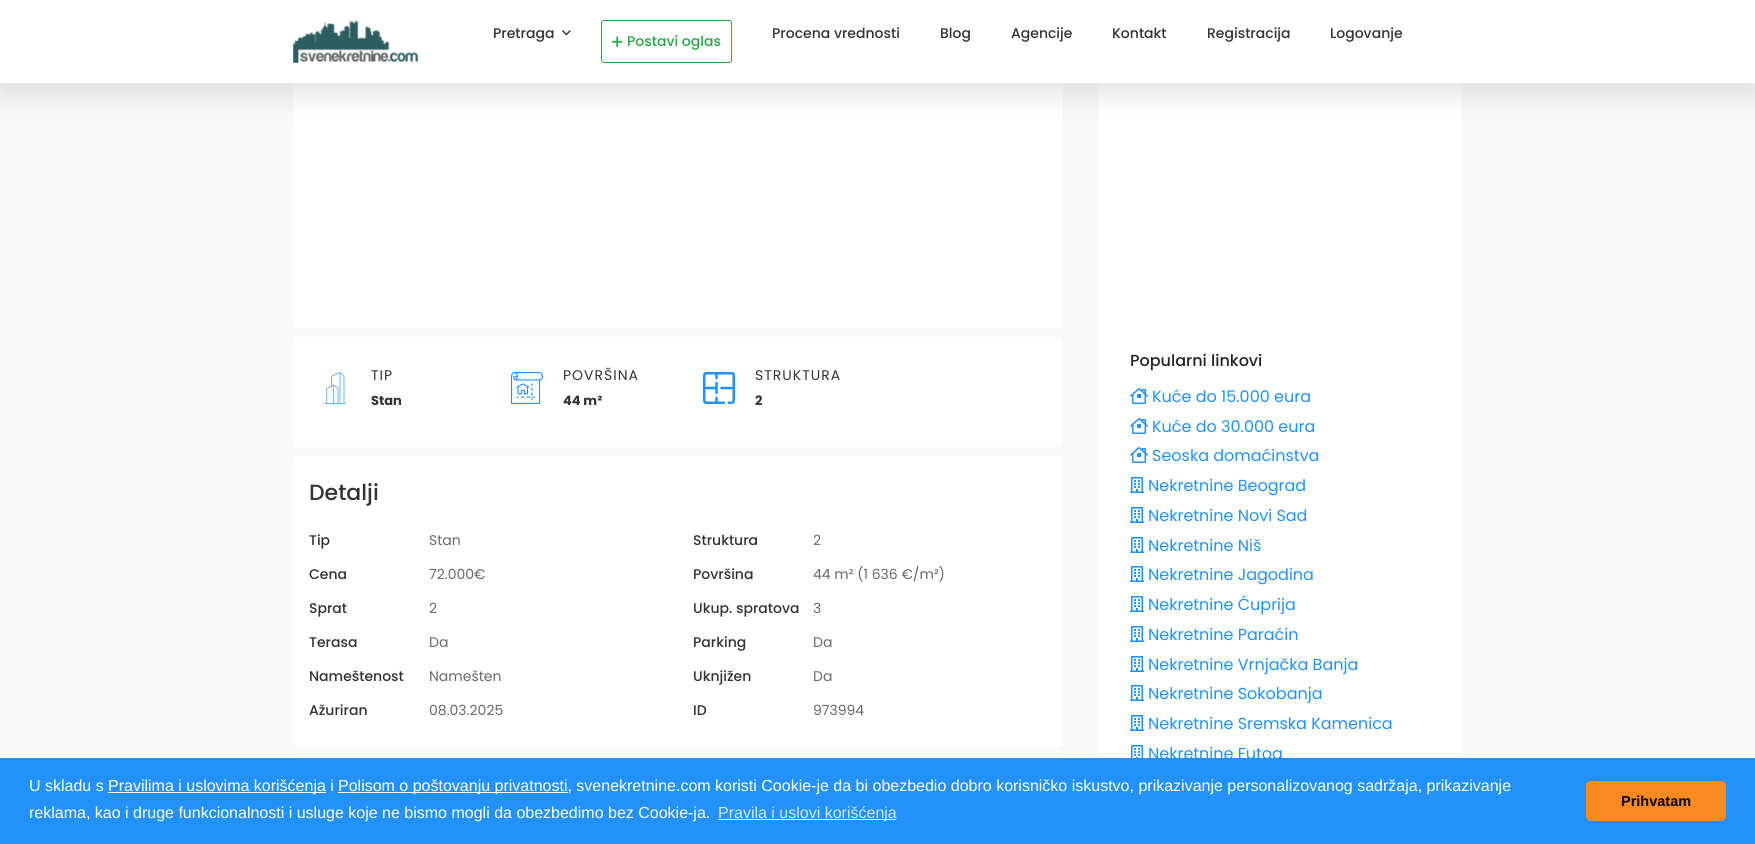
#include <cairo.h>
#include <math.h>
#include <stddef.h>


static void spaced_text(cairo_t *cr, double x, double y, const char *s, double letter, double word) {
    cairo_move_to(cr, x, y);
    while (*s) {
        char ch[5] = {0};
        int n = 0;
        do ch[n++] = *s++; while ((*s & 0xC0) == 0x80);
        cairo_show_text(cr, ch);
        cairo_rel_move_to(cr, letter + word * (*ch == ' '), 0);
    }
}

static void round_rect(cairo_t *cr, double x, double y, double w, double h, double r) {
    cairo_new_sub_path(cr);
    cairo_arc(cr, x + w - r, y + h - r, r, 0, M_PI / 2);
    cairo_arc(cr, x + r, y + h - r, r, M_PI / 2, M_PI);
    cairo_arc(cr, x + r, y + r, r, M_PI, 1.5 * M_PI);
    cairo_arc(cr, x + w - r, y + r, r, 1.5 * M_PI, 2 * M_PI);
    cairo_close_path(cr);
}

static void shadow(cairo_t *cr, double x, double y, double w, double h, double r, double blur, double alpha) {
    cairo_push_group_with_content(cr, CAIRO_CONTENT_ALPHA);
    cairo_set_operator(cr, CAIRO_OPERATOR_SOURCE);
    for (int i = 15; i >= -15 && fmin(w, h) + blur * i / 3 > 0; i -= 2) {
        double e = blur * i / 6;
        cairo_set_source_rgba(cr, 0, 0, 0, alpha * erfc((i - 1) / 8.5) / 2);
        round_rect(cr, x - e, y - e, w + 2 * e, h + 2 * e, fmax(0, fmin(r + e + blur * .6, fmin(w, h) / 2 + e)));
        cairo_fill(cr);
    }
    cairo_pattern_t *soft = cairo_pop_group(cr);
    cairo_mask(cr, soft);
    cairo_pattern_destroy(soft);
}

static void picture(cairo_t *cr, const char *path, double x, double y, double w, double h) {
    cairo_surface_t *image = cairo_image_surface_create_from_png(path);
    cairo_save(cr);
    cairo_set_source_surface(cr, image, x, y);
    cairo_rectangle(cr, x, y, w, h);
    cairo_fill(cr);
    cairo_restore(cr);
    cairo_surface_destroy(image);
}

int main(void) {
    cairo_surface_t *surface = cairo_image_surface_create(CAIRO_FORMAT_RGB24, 1755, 844);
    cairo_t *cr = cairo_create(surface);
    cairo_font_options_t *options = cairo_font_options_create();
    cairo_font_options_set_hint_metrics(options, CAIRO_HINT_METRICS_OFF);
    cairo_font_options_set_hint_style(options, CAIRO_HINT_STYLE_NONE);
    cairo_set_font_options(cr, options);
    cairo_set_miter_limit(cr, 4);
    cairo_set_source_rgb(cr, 0.973, 0.973, 0.973);
    cairo_paint(cr);
    cairo_set_source_rgb(cr, 1, 1, 1);
    round_rect(cr, 293, 16, 770, 312, 5);
    cairo_fill(cr);
    cairo_rectangle(cr, 1098, 83, 364, 675);
    cairo_fill(cr);
    cairo_set_source_rgb(cr, 0.2, 0.2, 0.2);
    shadow(cr, 0, 11, 1755, 83, 0, 15, 0.15);
    cairo_set_source_rgb(cr, 1, 1, 1);
    cairo_rectangle(cr, 0, 0, 1755, 83);
    cairo_fill(cr);
    picture(cr, "img1.png", 292, 20, 126, 43);
    cairo_select_font_face(cr, "Poppins Medium", CAIRO_FONT_SLANT_NORMAL, CAIRO_FONT_WEIGHT_NORMAL);
    cairo_set_font_size(cr, 14);
    cairo_set_source_rgb(cr, 0.2, 0.2, 0.2);
    cairo_move_to(cr, 493, 38);
    cairo_show_text(cr, "Pretraga");
    picture(cr, "img2.png", 562, 30, 9, 6);
    round_rect(cr, 601.5, 20.5, 130, 42, 2.5);
    cairo_set_source_rgb(cr, 0.157, 0.655, 0.271);
    cairo_set_line_width(cr, 1);
    cairo_stroke(cr);
    picture(cr, "img3.png", 612, 36, 11, 11);
    cairo_move_to(cr, 627, 46);
    cairo_show_text(cr, "Postavi oglas");
    cairo_set_source_rgb(cr, 0.2, 0.2, 0.2);
    cairo_move_to(cr, 772, 38);
    cairo_show_text(cr, "Procena vrednosti");
    cairo_move_to(cr, 940, 38);
    cairo_show_text(cr, "Blog");
    cairo_move_to(cr, 1011, 38);
    cairo_show_text(cr, "Agencije");
    cairo_move_to(cr, 1112, 38);
    cairo_show_text(cr, "Kontakt");
    cairo_move_to(cr, 1207, 38);
    cairo_show_text(cr, "Registracija");
    cairo_move_to(cr, 1330, 38);
    cairo_show_text(cr, "Logovanje");
    cairo_set_source_rgb(cr, 1, 1, 1);
    round_rect(cr, 293, 338, 770, 108, 5);
    cairo_fill(cr);
    picture(cr, "img4.png", 323, 372, 24, 32);
    cairo_select_font_face(cr, "Poppins", CAIRO_FONT_SLANT_NORMAL, CAIRO_FONT_WEIGHT_NORMAL);
    cairo_set_source_rgb(cr, 0.2, 0.2, 0.2);
    spaced_text(cr, 371, 380, "TIP", 1, 0);
    cairo_select_font_face(cr, "Poppins", CAIRO_FONT_SLANT_NORMAL, CAIRO_FONT_WEIGHT_BOLD);
    cairo_set_font_size(cr, 13);
    cairo_move_to(cr, 371, 405);
    cairo_show_text(cr, "Stan");
    picture(cr, "img5.png", 511, 372, 32, 32);
    cairo_select_font_face(cr, "Poppins", CAIRO_FONT_SLANT_NORMAL, CAIRO_FONT_WEIGHT_NORMAL);
    cairo_set_font_size(cr, 14);
    spaced_text(cr, 563, 380, "POVRŠINA", 1, 0);
    cairo_select_font_face(cr, "Poppins", CAIRO_FONT_SLANT_NORMAL, CAIRO_FONT_WEIGHT_BOLD);
    cairo_set_font_size(cr, 13);
    cairo_move_to(cr, 563, 405);
    cairo_show_text(cr, "44 m²");
    picture(cr, "img6.png", 703, 372, 32, 32);
    cairo_select_font_face(cr, "Poppins", CAIRO_FONT_SLANT_NORMAL, CAIRO_FONT_WEIGHT_NORMAL);
    cairo_set_font_size(cr, 14);
    spaced_text(cr, 755, 380, "STRUKTURA", 1, 0);
    cairo_select_font_face(cr, "Poppins", CAIRO_FONT_SLANT_NORMAL, CAIRO_FONT_WEIGHT_BOLD);
    cairo_set_font_size(cr, 13);
    cairo_move_to(cr, 755, 405);
    cairo_show_text(cr, "2");
    cairo_set_source_rgb(cr, 1, 1, 1);
    round_rect(cr, 293, 456, 770, 291, 5);
    cairo_fill(cr);
    cairo_select_font_face(cr, "Poppins Medium", CAIRO_FONT_SLANT_NORMAL, CAIRO_FONT_WEIGHT_NORMAL);
    cairo_set_font_size(cr, 22);
    cairo_set_source_rgb(cr, 0.2, 0.2, 0.2);
    cairo_move_to(cr, 309, 500);
    cairo_show_text(cr, "Detalji");
    cairo_set_font_size(cr, 14);
    cairo_move_to(cr, 309, 545);
    cairo_show_text(cr, "Tip");
    cairo_select_font_face(cr, "Poppins", CAIRO_FONT_SLANT_NORMAL, CAIRO_FONT_WEIGHT_NORMAL);
    cairo_set_source_rgb(cr, 0.412, 0.412, 0.412);
    cairo_move_to(cr, 429, 545);
    cairo_show_text(cr, "Stan");
    cairo_select_font_face(cr, "Poppins Medium", CAIRO_FONT_SLANT_NORMAL, CAIRO_FONT_WEIGHT_NORMAL);
    cairo_set_source_rgb(cr, 0.2, 0.2, 0.2);
    cairo_move_to(cr, 693, 545);
    cairo_show_text(cr, "Struktura");
    cairo_select_font_face(cr, "Poppins", CAIRO_FONT_SLANT_NORMAL, CAIRO_FONT_WEIGHT_NORMAL);
    cairo_set_source_rgb(cr, 0.412, 0.412, 0.412);
    cairo_move_to(cr, 813, 545);
    cairo_show_text(cr, "2");
    cairo_select_font_face(cr, "Poppins Medium", CAIRO_FONT_SLANT_NORMAL, CAIRO_FONT_WEIGHT_NORMAL);
    cairo_set_source_rgb(cr, 0.2, 0.2, 0.2);
    cairo_move_to(cr, 309, 579);
    cairo_show_text(cr, "Cena");
    cairo_select_font_face(cr, "Poppins", CAIRO_FONT_SLANT_NORMAL, CAIRO_FONT_WEIGHT_NORMAL);
    cairo_set_source_rgb(cr, 0.412, 0.412, 0.412);
    cairo_move_to(cr, 429, 579);
    cairo_show_text(cr, "72.000€");
    cairo_select_font_face(cr, "Poppins Medium", CAIRO_FONT_SLANT_NORMAL, CAIRO_FONT_WEIGHT_NORMAL);
    cairo_set_source_rgb(cr, 0.2, 0.2, 0.2);
    cairo_move_to(cr, 693, 579);
    cairo_show_text(cr, "Površina");
    cairo_select_font_face(cr, "Poppins", CAIRO_FONT_SLANT_NORMAL, CAIRO_FONT_WEIGHT_NORMAL);
    cairo_set_source_rgb(cr, 0.412, 0.412, 0.412);
    cairo_move_to(cr, 813, 579);
    cairo_show_text(cr, "44 m² (1 636 €/m²)");
    cairo_select_font_face(cr, "Poppins Medium", CAIRO_FONT_SLANT_NORMAL, CAIRO_FONT_WEIGHT_NORMAL);
    cairo_set_source_rgb(cr, 0.2, 0.2, 0.2);
    cairo_move_to(cr, 309, 613);
    cairo_show_text(cr, "Sprat");
    cairo_select_font_face(cr, "Poppins", CAIRO_FONT_SLANT_NORMAL, CAIRO_FONT_WEIGHT_NORMAL);
    cairo_set_source_rgb(cr, 0.412, 0.412, 0.412);
    cairo_move_to(cr, 429, 613);
    cairo_show_text(cr, "2");
    cairo_select_font_face(cr, "Poppins Medium", CAIRO_FONT_SLANT_NORMAL, CAIRO_FONT_WEIGHT_NORMAL);
    cairo_set_source_rgb(cr, 0.2, 0.2, 0.2);
    cairo_move_to(cr, 693, 613);
    cairo_show_text(cr, "Ukup. spratova");
    cairo_select_font_face(cr, "Poppins", CAIRO_FONT_SLANT_NORMAL, CAIRO_FONT_WEIGHT_NORMAL);
    cairo_set_source_rgb(cr, 0.412, 0.412, 0.412);
    cairo_move_to(cr, 813, 613);
    cairo_show_text(cr, "3");
    cairo_select_font_face(cr, "Poppins Medium", CAIRO_FONT_SLANT_NORMAL, CAIRO_FONT_WEIGHT_NORMAL);
    cairo_set_source_rgb(cr, 0.2, 0.2, 0.2);
    cairo_move_to(cr, 309, 647);
    cairo_show_text(cr, "Terasa");
    cairo_select_font_face(cr, "Poppins", CAIRO_FONT_SLANT_NORMAL, CAIRO_FONT_WEIGHT_NORMAL);
    cairo_set_source_rgb(cr, 0.412, 0.412, 0.412);
    cairo_move_to(cr, 429, 647);
    cairo_show_text(cr, "Da");
    cairo_select_font_face(cr, "Poppins Medium", CAIRO_FONT_SLANT_NORMAL, CAIRO_FONT_WEIGHT_NORMAL);
    cairo_set_source_rgb(cr, 0.2, 0.2, 0.2);
    cairo_move_to(cr, 693, 647);
    cairo_show_text(cr, "Parking");
    cairo_select_font_face(cr, "Poppins", CAIRO_FONT_SLANT_NORMAL, CAIRO_FONT_WEIGHT_NORMAL);
    cairo_set_source_rgb(cr, 0.412, 0.412, 0.412);
    cairo_move_to(cr, 813, 647);
    cairo_show_text(cr, "Da");
    cairo_select_font_face(cr, "Poppins Medium", CAIRO_FONT_SLANT_NORMAL, CAIRO_FONT_WEIGHT_NORMAL);
    cairo_set_source_rgb(cr, 0.2, 0.2, 0.2);
    cairo_move_to(cr, 309, 681);
    cairo_show_text(cr, "Nameštenost");
    cairo_select_font_face(cr, "Poppins", CAIRO_FONT_SLANT_NORMAL, CAIRO_FONT_WEIGHT_NORMAL);
    cairo_set_source_rgb(cr, 0.412, 0.412, 0.412);
    cairo_move_to(cr, 429, 681);
    cairo_show_text(cr, "Namešten");
    cairo_select_font_face(cr, "Poppins Medium", CAIRO_FONT_SLANT_NORMAL, CAIRO_FONT_WEIGHT_NORMAL);
    cairo_set_source_rgb(cr, 0.2, 0.2, 0.2);
    cairo_move_to(cr, 693, 681);
    cairo_show_text(cr, "Uknjižen");
    cairo_select_font_face(cr, "Poppins", CAIRO_FONT_SLANT_NORMAL, CAIRO_FONT_WEIGHT_NORMAL);
    cairo_set_source_rgb(cr, 0.412, 0.412, 0.412);
    cairo_move_to(cr, 813, 681);
    cairo_show_text(cr, "Da");
    cairo_select_font_face(cr, "Poppins Medium", CAIRO_FONT_SLANT_NORMAL, CAIRO_FONT_WEIGHT_NORMAL);
    cairo_set_source_rgb(cr, 0.2, 0.2, 0.2);
    cairo_move_to(cr, 309, 715);
    cairo_show_text(cr, "Ažuriran");
    cairo_select_font_face(cr, "Poppins", CAIRO_FONT_SLANT_NORMAL, CAIRO_FONT_WEIGHT_NORMAL);
    cairo_set_source_rgb(cr, 0.412, 0.412, 0.412);
    cairo_move_to(cr, 429, 715);
    cairo_show_text(cr, "08.03.2025");
    cairo_select_font_face(cr, "Poppins Medium", CAIRO_FONT_SLANT_NORMAL, CAIRO_FONT_WEIGHT_NORMAL);
    cairo_set_source_rgb(cr, 0.2, 0.2, 0.2);
    cairo_move_to(cr, 693, 715);
    cairo_show_text(cr, "ID");
    cairo_select_font_face(cr, "Poppins", CAIRO_FONT_SLANT_NORMAL, CAIRO_FONT_WEIGHT_NORMAL);
    cairo_set_source_rgb(cr, 0.412, 0.412, 0.412);
    cairo_move_to(cr, 813, 715);
    cairo_show_text(cr, "973994");
    cairo_set_source_rgb(cr, 1, 1, 1);
    round_rect(cr, 293, 757, 770, 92, 5);
    cairo_fill(cr);
    cairo_select_font_face(cr, "Poppins Medium", CAIRO_FONT_SLANT_NORMAL, CAIRO_FONT_WEIGHT_NORMAL);
    cairo_set_font_size(cr, 16);
    cairo_set_source_rgb(cr, 0.145, 0.145, 0.145);
    cairo_move_to(cr, 1130, 366);
    cairo_show_text(cr, "Popularni linkovi");
    picture(cr, "img7.png", 1130, 388, 18, 16);
    cairo_select_font_face(cr, "Poppins", CAIRO_FONT_SLANT_NORMAL, CAIRO_FONT_WEIGHT_NORMAL);
    cairo_set_source_rgb(cr, 0.133, 0.569, 0.976);
    cairo_move_to(cr, 1152, 402);
    cairo_show_text(cr, "Kuće do 15.000 eura");
    picture(cr, "img7.png", 1130, 418, 18, 16);
    cairo_move_to(cr, 1152, 432);
    cairo_show_text(cr, "Kuće do 30.000 eura");
    picture(cr, "img7.png", 1130, 447, 18, 16);
    cairo_move_to(cr, 1152, 461);
    cairo_show_text(cr, "Seoska domaćinstva");
    picture(cr, "img8.png", 1130, 477, 14, 16);
    cairo_move_to(cr, 1148, 491);
    cairo_show_text(cr, "Nekretnine Beograd");
    picture(cr, "img8.png", 1130, 507, 14, 16);
    cairo_move_to(cr, 1148, 521);
    cairo_show_text(cr, "Nekretnine Novi Sad");
    picture(cr, "img8.png", 1130, 537, 14, 16);
    cairo_move_to(cr, 1148, 551);
    cairo_show_text(cr, "Nekretnine Niš");
    picture(cr, "img8.png", 1130, 566, 14, 16);
    cairo_move_to(cr, 1148, 580);
    cairo_show_text(cr, "Nekretnine Jagodina");
    picture(cr, "img8.png", 1130, 596, 14, 16);
    cairo_move_to(cr, 1148, 610);
    cairo_show_text(cr, "Nekretnine Ćuprija");
    picture(cr, "img8.png", 1130, 626, 14, 16);
    cairo_move_to(cr, 1148, 640);
    cairo_show_text(cr, "Nekretnine Paraćin");
    picture(cr, "img8.png", 1130, 656, 14, 16);
    cairo_move_to(cr, 1148, 670);
    cairo_show_text(cr, "Nekretnine Vrnjačka Banja");
    picture(cr, "img8.png", 1130, 685, 14, 16);
    cairo_move_to(cr, 1148, 699);
    cairo_show_text(cr, "Nekretnine Sokobanja");
    picture(cr, "img8.png", 1130, 715, 14, 16);
    cairo_move_to(cr, 1148, 729);
    cairo_show_text(cr, "Nekretnine Sremska Kamenica");
    picture(cr, "img9.png", 1131, 745, 12, 13);
    cairo_move_to(cr, 1148, 759);
    cairo_show_text(cr, "Nekretnine Futog");
    cairo_rectangle(cr, 0, 758, 1755, 86);
    cairo_fill(cr);
    cairo_select_font_face(cr, "Liberation Sans", CAIRO_FONT_SLANT_NORMAL, CAIRO_FONT_WEIGHT_NORMAL);
    cairo_set_source_rgb(cr, 1, 1, 1);
    cairo_move_to(cr, 29, 791);
    cairo_show_text(cr, "U skladu s");
    cairo_rectangle(cr, 108, 792, 218, 1);
    cairo_fill(cr);
    cairo_move_to(cr, 108, 791);
    cairo_show_text(cr, "Pravilima i uslovima korišćenja i");
    cairo_rectangle(cr, 338, 792, 230, 1);
    cairo_fill(cr);
    cairo_move_to(cr, 338, 791);
    cairo_show_text(cr, "Polisom o poštovanju privatnosti, svenekretnine.com koristi Cookie-je da bi obezbedio dobro korisničko iskustvo, prikazivanje personalizovanog sadržaja, prikazivanje");
    cairo_move_to(cr, 29, 818);
    cairo_show_text(cr, "reklama, kao i druge funkcionalnosti i usluge koje ne bismo mogli da obezbedimo bez Cookie-ja.");
    cairo_set_source_rgb(cr, 0.827, 0.914, 0.996);
    cairo_rectangle(cr, 718, 819, 178, 1);
    cairo_fill(cr);
    cairo_move_to(cr, 718, 818);
    cairo_show_text(cr, "Pravila i uslovi korišćenja");
    cairo_set_source_rgb(cr, 0.976, 0.541, 0.133);
    round_rect(cr, 1586, 781, 140, 40, 5);
    cairo_fill(cr);
    cairo_select_font_face(cr, "Liberation Sans", CAIRO_FONT_SLANT_NORMAL, CAIRO_FONT_WEIGHT_BOLD);
    cairo_set_font_size(cr, 14.5);
    cairo_set_source_rgb(cr, 0, 0, 0);
    cairo_move_to(cr, 1621, 806);
    cairo_show_text(cr, "Prihvatam");
    cairo_surface_write_to_png(surface, "page.png");
    cairo_font_options_destroy(options);
    cairo_destroy(cr);
    cairo_surface_destroy(surface);
    return 0;
}
